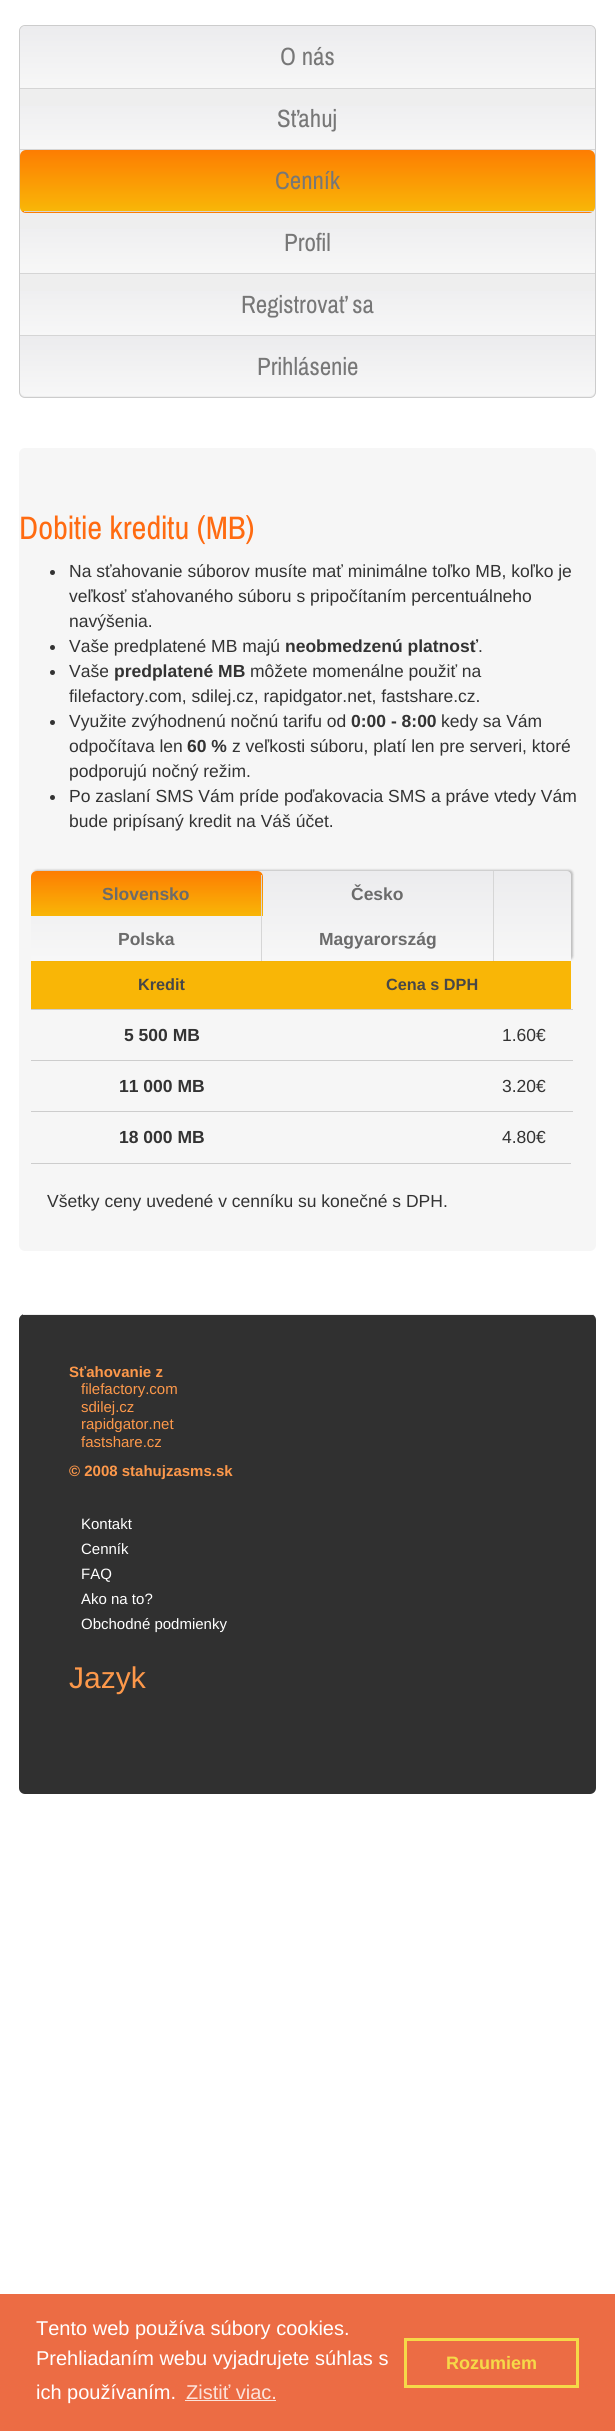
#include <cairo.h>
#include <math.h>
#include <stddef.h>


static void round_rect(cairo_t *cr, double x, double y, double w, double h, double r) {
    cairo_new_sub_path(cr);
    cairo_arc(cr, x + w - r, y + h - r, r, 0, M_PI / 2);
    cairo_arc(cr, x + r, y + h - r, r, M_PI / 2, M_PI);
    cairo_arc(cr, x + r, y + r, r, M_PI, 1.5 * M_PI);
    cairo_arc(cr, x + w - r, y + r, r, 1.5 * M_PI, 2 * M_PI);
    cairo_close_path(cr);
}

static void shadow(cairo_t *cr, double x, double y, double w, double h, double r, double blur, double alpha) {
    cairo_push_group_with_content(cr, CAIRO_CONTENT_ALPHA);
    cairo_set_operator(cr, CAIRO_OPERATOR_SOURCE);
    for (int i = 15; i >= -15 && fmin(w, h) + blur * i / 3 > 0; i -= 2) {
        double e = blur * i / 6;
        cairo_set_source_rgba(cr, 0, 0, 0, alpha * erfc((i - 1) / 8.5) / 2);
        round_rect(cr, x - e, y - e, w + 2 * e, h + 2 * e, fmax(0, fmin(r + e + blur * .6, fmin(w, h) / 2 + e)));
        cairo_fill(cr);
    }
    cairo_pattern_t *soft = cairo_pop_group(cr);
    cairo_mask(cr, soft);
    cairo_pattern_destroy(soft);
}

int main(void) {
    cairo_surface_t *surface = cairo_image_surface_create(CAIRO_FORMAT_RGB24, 615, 2431);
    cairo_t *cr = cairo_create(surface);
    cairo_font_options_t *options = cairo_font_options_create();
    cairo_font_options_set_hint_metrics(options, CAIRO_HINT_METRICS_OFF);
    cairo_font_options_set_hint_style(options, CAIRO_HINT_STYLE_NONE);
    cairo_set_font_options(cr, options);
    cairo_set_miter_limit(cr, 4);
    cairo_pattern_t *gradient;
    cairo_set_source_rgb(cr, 1, 1, 1);
    cairo_paint(cr);
    cairo_set_source_rgb(cr, 0.933, 0.933, 0.933);
    round_rect(cr, 19.5, 25.5, 576, 372, 5.5);
    cairo_fill_preserve(cr);
    cairo_set_source_rgb(cr, 0.8, 0.8, 0.8);
    cairo_set_line_width(cr, 1);
    cairo_stroke(cr);
    gradient = cairo_pattern_create_linear(308, 26, 308, 88);
    cairo_pattern_add_color_stop_rgba(gradient, 0, 0.925, 0.925, 0.933, 1);
    cairo_pattern_add_color_stop_rgba(gradient, 1, 0.969, 0.969, 0.969, 1);
    cairo_set_source(cr, gradient);
    cairo_pattern_destroy(gradient);
    cairo_new_path(cr);
    cairo_move_to(cr, 26, 26);
    cairo_line_to(cr, 589, 26);
    cairo_curve_to(cr, 592.5, 26, 595, 28.5, 595, 32);
    cairo_line_to(cr, 595, 88);
    cairo_line_to(cr, 20, 88);
    cairo_line_to(cr, 20, 32);
    cairo_curve_to(cr, 20, 28.5, 22.5, 26, 26, 26);
    cairo_close_path(cr);
    cairo_fill(cr);
    cairo_set_source_rgb(cr, 0.835, 0.835, 0.835);
    cairo_rectangle(cr, 20, 88, 575, 1);
    cairo_fill(cr);
    cairo_select_font_face(cr, "Archivo Narrow", CAIRO_FONT_SLANT_NORMAL, CAIRO_FONT_WEIGHT_NORMAL);
    cairo_set_font_size(cr, 25);
    cairo_set_source_rgb(cr, 0.467, 0.467, 0.467);
    cairo_move_to(cr, 280, 65);
    cairo_show_text(cr, "O nás");
    gradient = cairo_pattern_create_linear(308, 89, 308, 149);
    cairo_pattern_add_color_stop_rgba(gradient, 0, 0.925, 0.925, 0.933, 1);
    cairo_pattern_add_color_stop_rgba(gradient, 1, 0.969, 0.969, 0.969, 1);
    cairo_set_source(cr, gradient);
    cairo_pattern_destroy(gradient);
    cairo_rectangle(cr, 20, 106, 575, 43);
    cairo_fill(cr);
    cairo_set_source_rgb(cr, 0.835, 0.835, 0.835);
    cairo_rectangle(cr, 20, 149, 575, 1);
    cairo_fill(cr);
    cairo_set_source_rgb(cr, 0.467, 0.467, 0.467);
    cairo_move_to(cr, 277, 127);
    cairo_show_text(cr, "Sťahuj");
    cairo_save(cr);
    round_rect(cr, 20, 150, 575, 63, 6);
    cairo_clip(cr);
    gradient = cairo_pattern_create_linear(308, 150, 308, 211);
    cairo_pattern_add_color_stop_rgba(gradient, 0, 0.992, 0.49, 0.008, 1);
    cairo_pattern_add_color_stop_rgba(gradient, 1, 0.976, 0.714, 0.027, 1);
    cairo_set_source(cr, gradient);
    cairo_pattern_destroy(gradient);
    cairo_new_path(cr);
    cairo_move_to(cr, 26, 150);
    cairo_line_to(cr, 589, 150);
    cairo_curve_to(cr, 592.5, 150, 595, 152.5, 595, 156);
    cairo_line_to(cr, 595, 211);
    cairo_line_to(cr, 20, 211);
    cairo_line_to(cr, 20, 156);
    cairo_curve_to(cr, 20, 152.5, 22.5, 150, 26, 150);
    cairo_close_path(cr);
    cairo_fill(cr);
    gradient = cairo_pattern_create_linear(308, 211, 308, 273);
    cairo_pattern_add_color_stop_rgba(gradient, 0, 0.992, 0.49, 0.008, 1);
    cairo_pattern_add_color_stop_rgba(gradient, 1, 0.976, 0.714, 0.027, 1);
    cairo_set_source(cr, gradient);
    cairo_pattern_destroy(gradient);
    cairo_rectangle(cr, 20, 211, 575, 2);
    cairo_fill(cr);
    cairo_restore(cr);
    cairo_set_source_rgb(cr, 0.835, 0.835, 0.835);
    cairo_rectangle(cr, 24, 211, 569, 1);
    cairo_fill(cr);
    cairo_set_source_rgb(cr, 0.467, 0.467, 0.467);
    cairo_move_to(cr, 275, 189);
    cairo_show_text(cr, "Cenník");
    gradient = cairo_pattern_create_linear(308, 212, 308, 273);
    cairo_pattern_add_color_stop_rgba(gradient, 0, 0.925, 0.925, 0.933, 1);
    cairo_pattern_add_color_stop_rgba(gradient, 1, 0.969, 0.969, 0.969, 1);
    cairo_set_source(cr, gradient);
    cairo_pattern_destroy(gradient);
    cairo_rectangle(cr, 20, 229, 575, 44);
    cairo_fill(cr);
    cairo_set_source_rgb(cr, 0.835, 0.835, 0.835);
    cairo_rectangle(cr, 20, 273, 575, 1);
    cairo_fill(cr);
    cairo_set_source_rgb(cr, 0.467, 0.467, 0.467);
    cairo_move_to(cr, 284, 251);
    cairo_show_text(cr, "Profil");
    gradient = cairo_pattern_create_linear(308, 274, 308, 335);
    cairo_pattern_add_color_stop_rgba(gradient, 0, 0.925, 0.925, 0.933, 1);
    cairo_pattern_add_color_stop_rgba(gradient, 1, 0.969, 0.969, 0.969, 1);
    cairo_set_source(cr, gradient);
    cairo_pattern_destroy(gradient);
    cairo_rectangle(cr, 20, 291, 575, 44);
    cairo_fill(cr);
    cairo_set_source_rgb(cr, 0.835, 0.835, 0.835);
    cairo_rectangle(cr, 20, 335, 575, 1);
    cairo_fill(cr);
    cairo_set_source_rgb(cr, 0.467, 0.467, 0.467);
    cairo_move_to(cr, 241, 313);
    cairo_show_text(cr, "Registrovať sa");
    gradient = cairo_pattern_create_linear(308, 336, 308, 396);
    cairo_pattern_add_color_stop_rgba(gradient, 0, 0.925, 0.925, 0.933, 1);
    cairo_pattern_add_color_stop_rgba(gradient, 1, 0.969, 0.969, 0.969, 1);
    cairo_set_source(cr, gradient);
    cairo_pattern_destroy(gradient);
    cairo_new_path(cr);
    cairo_move_to(cr, 20, 336);
    cairo_line_to(cr, 595, 336);
    cairo_line_to(cr, 595, 390);
    cairo_curve_to(cr, 595, 393.5, 592.5, 396, 589, 396);
    cairo_line_to(cr, 26, 396);
    cairo_curve_to(cr, 22.5, 396, 20, 393.5, 20, 390);
    cairo_close_path(cr);
    cairo_fill(cr);
    cairo_set_source_rgb(cr, 0.467, 0.467, 0.467);
    cairo_move_to(cr, 257, 375);
    cairo_show_text(cr, "Prihlásenie");
    cairo_set_source_rgb(cr, 0.961, 0.961, 0.961);
    round_rect(cr, 19, 448, 577, 803, 6);
    cairo_fill(cr);
    cairo_set_font_size(cr, 32.5);
    cairo_set_source_rgb(cr, 1, 0.42, 0.067);
    cairo_move_to(cr, 19, 539);
    cairo_show_text(cr, "Dobitie kreditu (MB)");
    cairo_set_source_rgb(cr, 0.2, 0.2, 0.2);
    cairo_new_path(cr);
    cairo_arc(cr, 52.5, 572.5, 2.5, 0, 2 * M_PI);
    cairo_fill(cr);
    cairo_select_font_face(cr, "Liberation Sans", CAIRO_FONT_SLANT_NORMAL, CAIRO_FONT_WEIGHT_NORMAL);
    cairo_set_font_size(cr, 17.5);
    cairo_move_to(cr, 69, 577);
    cairo_show_text(cr, "Na sťahovanie súborov musíte mať minimálne toľko MB, koľko je");
    cairo_move_to(cr, 69, 602);
    cairo_show_text(cr, "veľkosť sťahovaného súboru s pripočítaním percentuálneho");
    cairo_move_to(cr, 69, 627);
    cairo_show_text(cr, "navýšenia.");
    cairo_new_path(cr);
    cairo_arc(cr, 52.5, 647.5, 2.5, 0, 2 * M_PI);
    cairo_fill(cr);
    cairo_move_to(cr, 69, 652);
    cairo_show_text(cr, "Vaše predplatené MB majú");
    cairo_select_font_face(cr, "Liberation Sans", CAIRO_FONT_SLANT_NORMAL, CAIRO_FONT_WEIGHT_BOLD);
    cairo_move_to(cr, 285, 652);
    cairo_show_text(cr, "neobmedzenú platnosť");
    cairo_select_font_face(cr, "Liberation Sans", CAIRO_FONT_SLANT_NORMAL, CAIRO_FONT_WEIGHT_NORMAL);
    cairo_move_to(cr, 478, 652);
    cairo_show_text(cr, ".");
    cairo_new_path(cr);
    cairo_arc(cr, 52.5, 672.5, 2.5, 0, 2 * M_PI);
    cairo_fill(cr);
    cairo_move_to(cr, 69, 677);
    cairo_show_text(cr, "Vaše");
    cairo_select_font_face(cr, "Liberation Sans", CAIRO_FONT_SLANT_NORMAL, CAIRO_FONT_WEIGHT_BOLD);
    cairo_move_to(cr, 114, 677);
    cairo_show_text(cr, "predplatené MB");
    cairo_select_font_face(cr, "Liberation Sans", CAIRO_FONT_SLANT_NORMAL, CAIRO_FONT_WEIGHT_NORMAL);
    cairo_move_to(cr, 250, 677);
    cairo_show_text(cr, "môžete momenálne použiť na");
    cairo_move_to(cr, 69, 702);
    cairo_show_text(cr, "filefactory.com, sdilej.cz, rapidgator.net, fastshare.cz.");
    cairo_new_path(cr);
    cairo_arc(cr, 52.5, 722.5, 2.5, 0, 2 * M_PI);
    cairo_fill(cr);
    cairo_move_to(cr, 69, 727);
    cairo_show_text(cr, "Využite zvýhodnenú nočnú tarifu od");
    cairo_select_font_face(cr, "Liberation Sans", CAIRO_FONT_SLANT_NORMAL, CAIRO_FONT_WEIGHT_BOLD);
    cairo_move_to(cr, 351, 727);
    cairo_show_text(cr, "0:00 - 8:00");
    cairo_select_font_face(cr, "Liberation Sans", CAIRO_FONT_SLANT_NORMAL, CAIRO_FONT_WEIGHT_NORMAL);
    cairo_move_to(cr, 441, 727);
    cairo_show_text(cr, "kedy sa Vám");
    cairo_move_to(cr, 69, 752);
    cairo_show_text(cr, "odpočítava len");
    cairo_select_font_face(cr, "Liberation Sans", CAIRO_FONT_SLANT_NORMAL, CAIRO_FONT_WEIGHT_BOLD);
    cairo_move_to(cr, 187, 752);
    cairo_show_text(cr, "60 %");
    cairo_select_font_face(cr, "Liberation Sans", CAIRO_FONT_SLANT_NORMAL, CAIRO_FONT_WEIGHT_NORMAL);
    cairo_move_to(cr, 232, 752);
    cairo_show_text(cr, "z veľkosti súboru, platí len pre serveri, ktoré");
    cairo_move_to(cr, 69, 777);
    cairo_show_text(cr, "podporujú nočný režim.");
    cairo_new_path(cr);
    cairo_arc(cr, 52.5, 797.5, 2.5, 0, 2 * M_PI);
    cairo_fill(cr);
    cairo_move_to(cr, 69, 802);
    cairo_show_text(cr, "Po zaslaní SMS Vám príde poďakovacia SMS a práve vtedy Vám");
    cairo_move_to(cr, 69, 827);
    cairo_show_text(cr, "bude pripísaný kredit na Váš účet.");
    cairo_set_source_rgb(cr, 0.976, 0.714, 0.027);
    cairo_rectangle(cr, 31, 961, 540, 48);
    cairo_fill(cr);
    cairo_set_source_rgb(cr, 0.196, 0.196, 0.196);
    shadow(cr, 33, 870, 540, 90, 4, 1, 0.28);
    gradient = cairo_pattern_create_linear(301, 871, 301, 961);
    cairo_pattern_add_color_stop_rgba(gradient, 0, 0.925, 0.925, 0.933, 1);
    cairo_pattern_add_color_stop_rgba(gradient, 1, 0.969, 0.969, 0.969, 1);
    cairo_set_source(cr, gradient);
    cairo_pattern_destroy(gradient);
    cairo_new_path(cr);
    cairo_move_to(cr, 35, 871);
    cairo_line_to(cr, 567, 871);
    cairo_curve_to(cr, 569, 871, 571, 873, 571, 875);
    cairo_line_to(cr, 571, 961);
    cairo_line_to(cr, 31, 961);
    cairo_line_to(cr, 31, 875);
    cairo_curve_to(cr, 31, 873, 33, 871, 35, 871);
    cairo_close_path(cr);
    cairo_fill(cr);
    gradient = cairo_pattern_create_linear(146, 871, 146, 916);
    cairo_pattern_add_color_stop_rgba(gradient, 0, 0.992, 0.49, 0.008, 1);
    cairo_pattern_add_color_stop_rgba(gradient, 1, 0.976, 0.714, 0.027, 1);
    cairo_set_source(cr, gradient);
    cairo_pattern_destroy(gradient);
    cairo_new_path(cr);
    cairo_move_to(cr, 37, 871);
    cairo_line_to(cr, 257, 871);
    cairo_curve_to(cr, 260.5, 871, 263, 873.5, 263, 877);
    cairo_line_to(cr, 263, 916);
    cairo_line_to(cr, 31, 916);
    cairo_line_to(cr, 31, 877);
    cairo_curve_to(cr, 31, 873.5, 33.5, 871, 37, 871);
    cairo_close_path(cr);
    cairo_fill(cr);
    cairo_set_source_rgb(cr, 0.839, 0.839, 0.839);
    cairo_rectangle(cr, 261, 875, 1, 86);
    cairo_fill(cr);
    cairo_select_font_face(cr, "Liberation Sans", CAIRO_FONT_SLANT_NORMAL, CAIRO_FONT_WEIGHT_BOLD);
    cairo_set_source_rgb(cr, 0.42, 0.42, 0.42);
    cairo_move_to(cr, 102, 900);
    cairo_show_text(cr, "Slovensko");
    cairo_set_source_rgb(cr, 0.839, 0.839, 0.839);
    cairo_rectangle(cr, 493, 871, 1, 90);
    cairo_fill(cr);
    cairo_set_source_rgb(cr, 0.42, 0.42, 0.42);
    cairo_move_to(cr, 351, 900);
    cairo_show_text(cr, "Česko");
    cairo_move_to(cr, 118, 945);
    cairo_show_text(cr, "Polska");
    cairo_move_to(cr, 319, 945);
    cairo_show_text(cr, "Magyarország");
    cairo_set_source_rgb(cr, 0.804, 0.804, 0.804);
    cairo_rectangle(cr, 31, 1163, 540, 1);
    cairo_fill(cr);
    cairo_set_font_size(cr, 16.25);
    cairo_set_source_rgb(cr, 0.278, 0.278, 0.278);
    cairo_move_to(cr, 138, 990);
    cairo_show_text(cr, "Kredit");
    cairo_move_to(cr, 386, 990);
    cairo_show_text(cr, "Cena s DPH");
    cairo_set_font_size(cr, 17.5);
    cairo_set_source_rgb(cr, 0.2, 0.2, 0.2);
    cairo_move_to(cr, 124, 1041);
    cairo_show_text(cr, "5 500 MB");
    cairo_set_source_rgb(cr, 0.804, 0.804, 0.804);
    cairo_rectangle(cr, 31, 1009, 542, 1);
    cairo_fill(cr);
    cairo_select_font_face(cr, "Liberation Sans", CAIRO_FONT_SLANT_NORMAL, CAIRO_FONT_WEIGHT_NORMAL);
    cairo_set_source_rgb(cr, 0.2, 0.2, 0.2);
    cairo_move_to(cr, 502, 1041);
    cairo_show_text(cr, "1.60€");
    cairo_select_font_face(cr, "Liberation Sans", CAIRO_FONT_SLANT_NORMAL, CAIRO_FONT_WEIGHT_BOLD);
    cairo_move_to(cr, 119, 1092);
    cairo_show_text(cr, "11 000 MB");
    cairo_set_source_rgb(cr, 0.804, 0.804, 0.804);
    cairo_rectangle(cr, 31, 1060, 542, 1);
    cairo_fill(cr);
    cairo_select_font_face(cr, "Liberation Sans", CAIRO_FONT_SLANT_NORMAL, CAIRO_FONT_WEIGHT_NORMAL);
    cairo_set_source_rgb(cr, 0.2, 0.2, 0.2);
    cairo_move_to(cr, 502, 1092);
    cairo_show_text(cr, "3.20€");
    cairo_select_font_face(cr, "Liberation Sans", CAIRO_FONT_SLANT_NORMAL, CAIRO_FONT_WEIGHT_BOLD);
    cairo_move_to(cr, 119, 1143);
    cairo_show_text(cr, "18 000 MB");
    cairo_set_source_rgb(cr, 0.804, 0.804, 0.804);
    cairo_rectangle(cr, 31, 1111, 542, 1);
    cairo_fill(cr);
    cairo_select_font_face(cr, "Liberation Sans", CAIRO_FONT_SLANT_NORMAL, CAIRO_FONT_WEIGHT_NORMAL);
    cairo_set_source_rgb(cr, 0.2, 0.2, 0.2);
    cairo_move_to(cr, 502, 1143);
    cairo_show_text(cr, "4.80€");
    cairo_move_to(cr, 47, 1207);
    cairo_show_text(cr, "Všetky ceny uvedené v cenníku su konečné s DPH.");
    cairo_set_source_rgb(cr, 0.188, 0.188, 0.188);
    round_rect(cr, 19, 1314, 577, 480, 6);
    cairo_fill(cr);
    cairo_set_source_rgb(cr, 0.933, 0.933, 0.933);
    cairo_rectangle(cr, 23, 1314, 571, 1);
    cairo_fill(cr);
    cairo_select_font_face(cr, "Liberation Sans", CAIRO_FONT_SLANT_NORMAL, CAIRO_FONT_WEIGHT_BOLD);
    cairo_set_font_size(cr, 15);
    cairo_set_source_rgb(cr, 0.992, 0.596, 0.29);
    cairo_move_to(cr, 69, 1377);
    cairo_show_text(cr, "Sťahovanie z");
    cairo_select_font_face(cr, "Liberation Sans", CAIRO_FONT_SLANT_NORMAL, CAIRO_FONT_WEIGHT_NORMAL);
    cairo_move_to(cr, 81, 1394);
    cairo_show_text(cr, "filefactory.com");
    cairo_move_to(cr, 81, 1412);
    cairo_show_text(cr, "sdilej.cz");
    cairo_move_to(cr, 81, 1429);
    cairo_show_text(cr, "rapidgator.net");
    cairo_move_to(cr, 81, 1447);
    cairo_show_text(cr, "fastshare.cz");
    cairo_select_font_face(cr, "Liberation Sans", CAIRO_FONT_SLANT_NORMAL, CAIRO_FONT_WEIGHT_BOLD);
    cairo_move_to(cr, 69, 1476);
    cairo_show_text(cr, "© 2008 stahujzasms.sk");
    cairo_select_font_face(cr, "Liberation Sans", CAIRO_FONT_SLANT_NORMAL, CAIRO_FONT_WEIGHT_NORMAL);
    cairo_set_source_rgb(cr, 1, 1, 1);
    cairo_move_to(cr, 81, 1529);
    cairo_show_text(cr, "Kontakt");
    cairo_move_to(cr, 81, 1554);
    cairo_show_text(cr, "Cenník");
    cairo_move_to(cr, 81, 1579);
    cairo_show_text(cr, "FAQ");
    cairo_move_to(cr, 81, 1604);
    cairo_show_text(cr, "Ako na to?");
    cairo_move_to(cr, 81, 1629);
    cairo_show_text(cr, "Obchodné podmienky");
    cairo_set_font_size(cr, 30);
    cairo_set_source_rgb(cr, 0.992, 0.596, 0.29);
    cairo_move_to(cr, 69, 1688);
    cairo_show_text(cr, "Jazyk");
    cairo_set_source_rgb(cr, 0.922, 0.424, 0.267);
    cairo_rectangle(cr, 0, 2294, 615, 137);
    cairo_fill(cr);
    cairo_set_font_size(cr, 20);
    cairo_set_source_rgb(cr, 1, 1, 1);
    cairo_move_to(cr, 36, 2335);
    cairo_show_text(cr, "Tento web používa súbory cookies.");
    cairo_move_to(cr, 36, 2365);
    cairo_show_text(cr, "Prehliadaním webu vyjadrujete súhlas s");
    cairo_move_to(cr, 36, 2399);
    cairo_show_text(cr, "ich používaním.");
    cairo_set_source_rgb(cr, 0.984, 0.886, 0.855);
    cairo_move_to(cr, 186, 2399);
    cairo_show_text(cr, "Zistiť viac.");
    cairo_rectangle(cr, 185, 2400, 91, 1);
    cairo_fill(cr);
    cairo_rectangle(cr, 405.5, 2339.5, 172, 47);
    cairo_set_source_rgb(cr, 0.961, 0.851, 0.282);
    cairo_set_line_width(cr, 3);
    cairo_stroke(cr);
    cairo_select_font_face(cr, "Liberation Sans", CAIRO_FONT_SLANT_NORMAL, CAIRO_FONT_WEIGHT_BOLD);
    cairo_set_font_size(cr, 18);
    cairo_move_to(cr, 446, 2369);
    cairo_show_text(cr, "Rozumiem");
    cairo_surface_write_to_png(surface, "page.png");
    cairo_font_options_destroy(options);
    cairo_destroy(cr);
    cairo_surface_destroy(surface);
    return 0;
}
